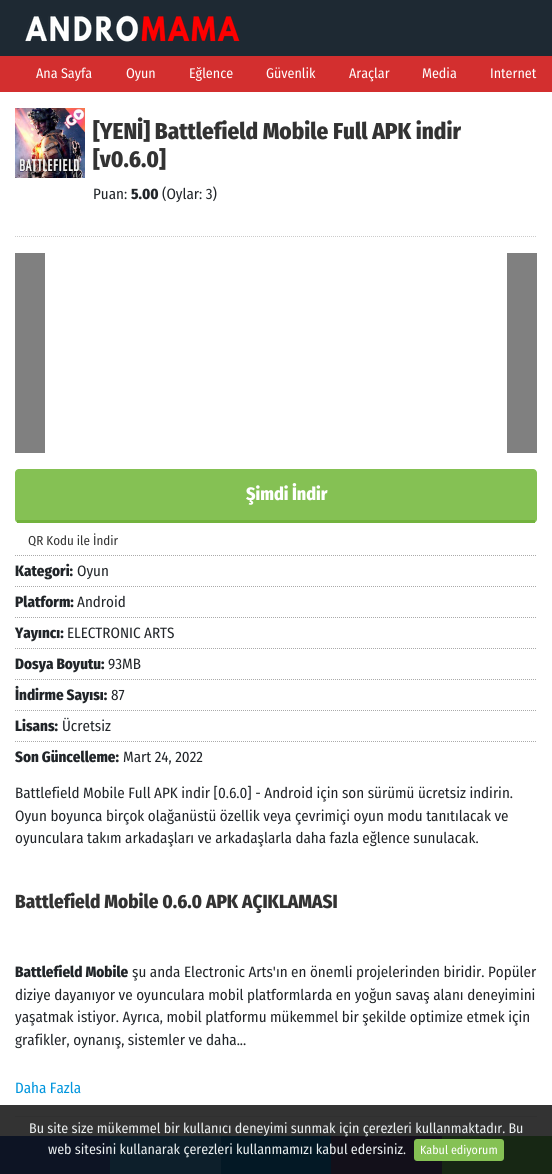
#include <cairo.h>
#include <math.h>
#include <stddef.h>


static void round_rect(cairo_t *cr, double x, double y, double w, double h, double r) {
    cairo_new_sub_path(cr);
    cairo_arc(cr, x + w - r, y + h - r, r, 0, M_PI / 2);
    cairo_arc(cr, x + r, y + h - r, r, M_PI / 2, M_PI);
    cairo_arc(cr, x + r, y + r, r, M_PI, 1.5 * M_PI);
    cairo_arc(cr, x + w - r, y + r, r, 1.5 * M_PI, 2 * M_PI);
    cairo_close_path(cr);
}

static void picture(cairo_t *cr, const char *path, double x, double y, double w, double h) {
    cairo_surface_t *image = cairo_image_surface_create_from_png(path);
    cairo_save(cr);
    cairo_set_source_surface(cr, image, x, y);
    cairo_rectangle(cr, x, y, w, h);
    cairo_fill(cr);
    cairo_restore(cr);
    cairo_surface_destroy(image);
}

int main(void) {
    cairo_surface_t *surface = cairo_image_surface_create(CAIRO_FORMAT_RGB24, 552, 1174);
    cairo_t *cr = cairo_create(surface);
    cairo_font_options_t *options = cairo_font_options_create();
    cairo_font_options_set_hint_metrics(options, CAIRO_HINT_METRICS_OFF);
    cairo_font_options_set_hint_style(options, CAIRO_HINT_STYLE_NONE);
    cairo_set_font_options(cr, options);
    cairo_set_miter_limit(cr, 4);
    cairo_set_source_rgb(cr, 1, 1, 1);
    cairo_paint(cr);
    cairo_set_source_rgb(cr, 0.2, 0.2, 0.2);
    cairo_rectangle(cr, 0, 1105, 552, 31);
    cairo_fill(cr);
    cairo_set_source_rgb(cr, 0.118, 0.161, 0.2);
    cairo_rectangle(cr, 0, 0, 552, 56);
    cairo_fill(cr);
    picture(cr, "img1.png", 25, 14, 215, 28);
    cairo_set_source_rgb(cr, 0.827, 0.184, 0.184);
    cairo_rectangle(cr, 0, 56, 552, 36);
    cairo_fill(cr);
    cairo_select_font_face(cr, "Fira Sans Condensed", CAIRO_FONT_SLANT_NORMAL, CAIRO_FONT_WEIGHT_NORMAL);
    cairo_set_font_size(cr, 14);
    cairo_set_source_rgb(cr, 1, 1, 1);
    cairo_move_to(cr, 36, 78);
    cairo_show_text(cr, "Ana Sayfa");
    cairo_move_to(cr, 126, 78);
    cairo_show_text(cr, "Oyun");
    cairo_move_to(cr, 189, 78);
    cairo_show_text(cr, "Eğlence");
    cairo_move_to(cr, 266, 78);
    cairo_show_text(cr, "Güvenlik");
    cairo_move_to(cr, 349, 78);
    cairo_show_text(cr, "Araçlar");
    cairo_move_to(cr, 422, 78);
    cairo_show_text(cr, "Media");
    cairo_move_to(cr, 490, 78);
    cairo_show_text(cr, "Internet");
    cairo_new_path(cr);
    cairo_move_to(cr, 15, 236.5);
    cairo_line_to(cr, 537, 236.5);
    cairo_set_source_rgb(cr, 0.8, 0.8, 0.8);
    cairo_set_line_width(cr, 1);
    cairo_set_dash(cr, (double[]){1, 1}, 2, 0);
    cairo_stroke(cr);
    picture(cr, "img2.png", 15, 108, 70, 70);
    cairo_select_font_face(cr, "Fira Sans Condensed ExtraBold", CAIRO_FONT_SLANT_NORMAL, CAIRO_FONT_WEIGHT_NORMAL);
    cairo_set_font_size(cr, 23);
    cairo_set_source_rgb(cr, 0.2, 0.2, 0.2);
    cairo_move_to(cr, 93, 139);
    cairo_show_text(cr, "[YENİ] Battlefield Mobile Full APK indir");
    cairo_move_to(cr, 93, 167);
    cairo_show_text(cr, "[v0.6.0]");
    cairo_select_font_face(cr, "Fira Sans Condensed", CAIRO_FONT_SLANT_NORMAL, CAIRO_FONT_WEIGHT_NORMAL);
    cairo_set_font_size(cr, 15);
    cairo_set_source_rgb(cr, 0.129, 0.145, 0.161);
    cairo_move_to(cr, 93, 199);
    cairo_show_text(cr, "Puan:");
    cairo_select_font_face(cr, "Fira Sans Condensed ExtraBold", CAIRO_FONT_SLANT_NORMAL, CAIRO_FONT_WEIGHT_NORMAL);
    cairo_move_to(cr, 131, 199);
    cairo_show_text(cr, "5.00");
    cairo_select_font_face(cr, "Fira Sans Condensed", CAIRO_FONT_SLANT_NORMAL, CAIRO_FONT_WEIGHT_NORMAL);
    cairo_move_to(cr, 162, 199);
    cairo_show_text(cr, "(Oylar: 3)");
    cairo_set_source_rgb(cr, 0.502, 0.502, 0.502);
    cairo_rectangle(cr, 15, 253, 30, 200);
    cairo_fill(cr);
    cairo_rectangle(cr, 507, 253, 30, 200);
    cairo_fill(cr);
    cairo_set_source_rgb(cr, 0.522, 0.757, 0.329);
    round_rect(cr, 15, 469, 522, 54, 4);
    cairo_fill(cr);
    cairo_set_source_rgb(cr, 0.451, 0.702, 0.243);
    cairo_rectangle(cr, 17, 520, 518, 3);
    cairo_fill(cr);
    cairo_select_font_face(cr, "Fira Sans Condensed ExtraBold", CAIRO_FONT_SLANT_NORMAL, CAIRO_FONT_WEIGHT_NORMAL);
    cairo_set_font_size(cr, 18);
    cairo_set_source_rgb(cr, 1, 1, 1);
    cairo_move_to(cr, 246, 500);
    cairo_show_text(cr, "Şimdi İndir");
    cairo_select_font_face(cr, "Fira Sans Condensed", CAIRO_FONT_SLANT_NORMAL, CAIRO_FONT_WEIGHT_NORMAL);
    cairo_set_font_size(cr, 13);
    cairo_set_source_rgb(cr, 0.2, 0.2, 0.2);
    cairo_move_to(cr, 28, 545);
    cairo_show_text(cr, "QR Kodu ile İndir");
    cairo_new_path(cr);
    cairo_move_to(cr, 15, 555.5);
    cairo_line_to(cr, 537, 555.5);
    cairo_set_source_rgb(cr, 0.667, 0.667, 0.667);
    cairo_stroke(cr);
    cairo_select_font_face(cr, "Fira Sans Condensed ExtraBold", CAIRO_FONT_SLANT_NORMAL, CAIRO_FONT_WEIGHT_NORMAL);
    cairo_set_font_size(cr, 15);
    cairo_set_source_rgb(cr, 0.129, 0.145, 0.161);
    cairo_move_to(cr, 15, 576);
    cairo_show_text(cr, "Kategori:");
    cairo_select_font_face(cr, "Fira Sans Condensed", CAIRO_FONT_SLANT_NORMAL, CAIRO_FONT_WEIGHT_NORMAL);
    cairo_move_to(cr, 77, 576);
    cairo_show_text(cr, "Oyun");
    cairo_new_path(cr);
    cairo_move_to(cr, 15, 586.5);
    cairo_line_to(cr, 537, 586.5);
    cairo_set_source_rgb(cr, 0.667, 0.667, 0.667);
    cairo_stroke(cr);
    cairo_select_font_face(cr, "Fira Sans Condensed ExtraBold", CAIRO_FONT_SLANT_NORMAL, CAIRO_FONT_WEIGHT_NORMAL);
    cairo_set_source_rgb(cr, 0.129, 0.145, 0.161);
    cairo_move_to(cr, 15, 607);
    cairo_show_text(cr, "Platform:");
    cairo_select_font_face(cr, "Fira Sans Condensed", CAIRO_FONT_SLANT_NORMAL, CAIRO_FONT_WEIGHT_NORMAL);
    cairo_move_to(cr, 77, 607);
    cairo_show_text(cr, "Android");
    cairo_new_path(cr);
    cairo_move_to(cr, 15, 617.5);
    cairo_line_to(cr, 537, 617.5);
    cairo_set_source_rgb(cr, 0.667, 0.667, 0.667);
    cairo_stroke(cr);
    cairo_select_font_face(cr, "Fira Sans Condensed ExtraBold", CAIRO_FONT_SLANT_NORMAL, CAIRO_FONT_WEIGHT_NORMAL);
    cairo_set_source_rgb(cr, 0.129, 0.145, 0.161);
    cairo_move_to(cr, 15, 638);
    cairo_show_text(cr, "Yayıncı:");
    cairo_select_font_face(cr, "Fira Sans Condensed", CAIRO_FONT_SLANT_NORMAL, CAIRO_FONT_WEIGHT_NORMAL);
    cairo_move_to(cr, 67, 638);
    cairo_show_text(cr, "ELECTRONIC ARTS");
    cairo_new_path(cr);
    cairo_move_to(cr, 15, 648.5);
    cairo_line_to(cr, 537, 648.5);
    cairo_set_source_rgb(cr, 0.667, 0.667, 0.667);
    cairo_stroke(cr);
    cairo_select_font_face(cr, "Fira Sans Condensed ExtraBold", CAIRO_FONT_SLANT_NORMAL, CAIRO_FONT_WEIGHT_NORMAL);
    cairo_set_source_rgb(cr, 0.129, 0.145, 0.161);
    cairo_move_to(cr, 15, 669);
    cairo_show_text(cr, "Dosya Boyutu:");
    cairo_select_font_face(cr, "Fira Sans Condensed", CAIRO_FONT_SLANT_NORMAL, CAIRO_FONT_WEIGHT_NORMAL);
    cairo_move_to(cr, 108, 669);
    cairo_show_text(cr, "93MB");
    cairo_new_path(cr);
    cairo_move_to(cr, 15, 679.5);
    cairo_line_to(cr, 537, 679.5);
    cairo_set_source_rgb(cr, 0.667, 0.667, 0.667);
    cairo_stroke(cr);
    cairo_select_font_face(cr, "Fira Sans Condensed ExtraBold", CAIRO_FONT_SLANT_NORMAL, CAIRO_FONT_WEIGHT_NORMAL);
    cairo_set_source_rgb(cr, 0.129, 0.145, 0.161);
    cairo_move_to(cr, 15, 700);
    cairo_show_text(cr, "İndirme Sayısı:");
    cairo_select_font_face(cr, "Fira Sans Condensed", CAIRO_FONT_SLANT_NORMAL, CAIRO_FONT_WEIGHT_NORMAL);
    cairo_move_to(cr, 111, 700);
    cairo_show_text(cr, "87");
    cairo_new_path(cr);
    cairo_move_to(cr, 15, 710.5);
    cairo_line_to(cr, 537, 710.5);
    cairo_set_source_rgb(cr, 0.667, 0.667, 0.667);
    cairo_stroke(cr);
    cairo_select_font_face(cr, "Fira Sans Condensed ExtraBold", CAIRO_FONT_SLANT_NORMAL, CAIRO_FONT_WEIGHT_NORMAL);
    cairo_set_source_rgb(cr, 0.129, 0.145, 0.161);
    cairo_move_to(cr, 15, 731);
    cairo_show_text(cr, "Lisans:");
    cairo_select_font_face(cr, "Fira Sans Condensed", CAIRO_FONT_SLANT_NORMAL, CAIRO_FONT_WEIGHT_NORMAL);
    cairo_move_to(cr, 62, 731);
    cairo_show_text(cr, "Ücretsiz");
    cairo_new_path(cr);
    cairo_move_to(cr, 15, 741.5);
    cairo_line_to(cr, 537, 741.5);
    cairo_set_source_rgb(cr, 0.667, 0.667, 0.667);
    cairo_stroke(cr);
    cairo_select_font_face(cr, "Fira Sans Condensed ExtraBold", CAIRO_FONT_SLANT_NORMAL, CAIRO_FONT_WEIGHT_NORMAL);
    cairo_set_source_rgb(cr, 0.129, 0.145, 0.161);
    cairo_move_to(cr, 15, 762);
    cairo_show_text(cr, "Son Güncelleme:");
    cairo_select_font_face(cr, "Fira Sans Condensed", CAIRO_FONT_SLANT_NORMAL, CAIRO_FONT_WEIGHT_NORMAL);
    cairo_move_to(cr, 123, 762);
    cairo_show_text(cr, "Mart 24, 2022");
    cairo_move_to(cr, 15, 798);
    cairo_show_text(cr, "Battlefield Mobile Full APK indir [0.6.0] - Android için son sürümü ücretsiz indirin.");
    cairo_move_to(cr, 15, 821);
    cairo_show_text(cr, "Oyun boyunca birçok olağanüstü özellik veya çevrimiçi oyun modu tanıtılacak ve");
    cairo_move_to(cr, 15, 843);
    cairo_show_text(cr, "oyunculara takım arkadaşları ve arkadaşlarla daha fazla eğlence sunulacak.");
    cairo_select_font_face(cr, "Fira Sans Condensed ExtraBold", CAIRO_FONT_SLANT_NORMAL, CAIRO_FONT_WEIGHT_NORMAL);
    cairo_set_font_size(cr, 19);
    cairo_set_source_rgb(cr, 0.2, 0.2, 0.2);
    cairo_move_to(cr, 15, 908);
    cairo_show_text(cr, "Battlefield Mobile 0.6.0 APK AÇIKLAMASI");
    cairo_set_font_size(cr, 15);
    cairo_set_source_rgb(cr, 0.129, 0.145, 0.161);
    cairo_move_to(cr, 15, 977);
    cairo_show_text(cr, "Battlefield Mobile");
    cairo_select_font_face(cr, "Fira Sans Condensed", CAIRO_FONT_SLANT_NORMAL, CAIRO_FONT_WEIGHT_NORMAL);
    cairo_move_to(cr, 132, 977);
    cairo_show_text(cr, "şu anda Electronic Arts'ın en önemli projelerinden biridir. Popüler");
    cairo_move_to(cr, 15, 1000);
    cairo_show_text(cr, "diziye dayanıyor ve oyunculara mobil platformlarda en yoğun savaş alanı deneyimini");
    cairo_move_to(cr, 15, 1022);
    cairo_show_text(cr, "yaşatmak istiyor. Ayrıca, mobil platformu mükemmel bir şekilde optimize etmek için");
    cairo_move_to(cr, 15, 1045);
    cairo_show_text(cr, "grafikler, oynanış, sistemler ve daha...");
    cairo_set_source_rgb(cr, 0, 0.584, 0.867);
    cairo_move_to(cr, 15, 1093);
    cairo_show_text(cr, "Daha Fazla");
    cairo_set_source_rgb(cr, 0.188, 0.188, 0.188);
    cairo_rectangle(cr, 15, 1116, 522, 1);
    cairo_fill(cr);
    cairo_set_source_rgb(cr, 0.051, 0.082, 0.141);
    cairo_rectangle(cr, 0, 1136, 110, 38);
    cairo_fill(cr);
    cairo_set_source_rgb(cr, 0.051, 0.122, 0.169);
    cairo_rectangle(cr, 110, 1136, 111, 38);
    cairo_fill(cr);
    cairo_set_source_rgb(cr, 0.012, 0.094, 0.145);
    cairo_rectangle(cr, 221, 1136, 110, 38);
    cairo_fill(cr);
    cairo_set_source_rgb(cr, 0.075, 0.063, 0.102);
    cairo_rectangle(cr, 331, 1136, 111, 38);
    cairo_fill(cr);
    cairo_set_source_rgb(cr, 0.09, 0.153, 0.082);
    cairo_rectangle(cr, 442, 1136, 110, 38);
    cairo_fill(cr);
    cairo_set_font_size(cr, 14);
    cairo_set_source_rgb(cr, 0.925, 0.941, 0.945);
    cairo_move_to(cr, 29, 1133);
    cairo_show_text(cr, "Bu site size mükemmel bir kullanıcı deneyimi sunmak için çerezleri kullanmaktadır. Bu");
    cairo_move_to(cr, 48, 1154);
    cairo_show_text(cr, "web sitesini kullanarak çerezleri kullanmamızı kabul edersiniz.");
    cairo_set_source_rgb(cr, 0.522, 0.757, 0.329);
    round_rect(cr, 414, 1139, 90, 22, 3);
    cairo_fill(cr);
    cairo_set_font_size(cr, 12);
    cairo_set_source_rgb(cr, 1, 1, 1);
    cairo_move_to(cr, 420, 1154);
    cairo_show_text(cr, "Kabul ediyorum");
    cairo_surface_write_to_png(surface, "page.png");
    cairo_font_options_destroy(options);
    cairo_destroy(cr);
    cairo_surface_destroy(surface);
    return 0;
}
